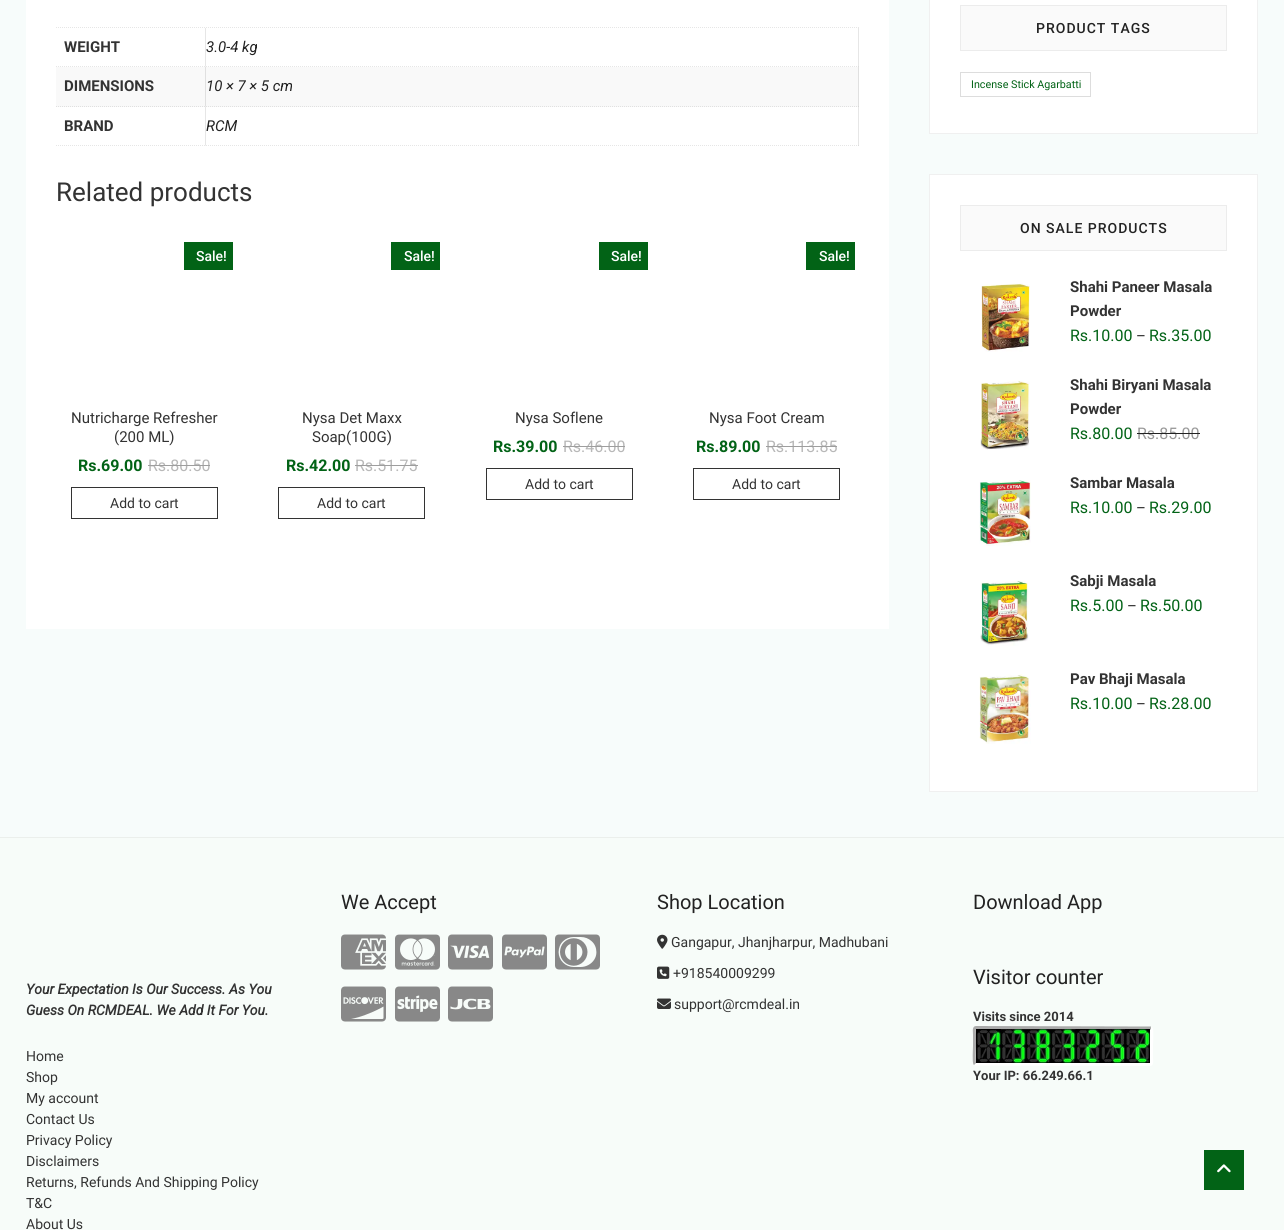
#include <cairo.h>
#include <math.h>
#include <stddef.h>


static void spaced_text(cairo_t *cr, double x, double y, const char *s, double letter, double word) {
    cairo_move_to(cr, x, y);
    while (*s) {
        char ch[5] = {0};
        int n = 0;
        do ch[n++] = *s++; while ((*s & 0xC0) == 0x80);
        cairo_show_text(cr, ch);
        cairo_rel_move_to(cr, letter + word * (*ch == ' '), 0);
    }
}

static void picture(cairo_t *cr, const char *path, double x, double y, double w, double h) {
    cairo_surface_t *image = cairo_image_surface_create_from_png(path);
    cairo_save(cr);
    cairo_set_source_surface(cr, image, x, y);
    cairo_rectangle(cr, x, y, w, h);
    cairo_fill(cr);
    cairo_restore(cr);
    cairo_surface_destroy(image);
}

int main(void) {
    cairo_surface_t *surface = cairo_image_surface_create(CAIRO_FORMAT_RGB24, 1284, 1230);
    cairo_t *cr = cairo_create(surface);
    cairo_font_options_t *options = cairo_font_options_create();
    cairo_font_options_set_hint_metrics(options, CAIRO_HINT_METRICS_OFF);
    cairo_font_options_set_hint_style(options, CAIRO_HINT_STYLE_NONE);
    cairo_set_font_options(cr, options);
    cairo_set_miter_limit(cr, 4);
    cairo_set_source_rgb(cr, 0.965, 0.988, 0.984);
    cairo_paint(cr);
    cairo_set_source_rgb(cr, 1, 1, 1);
    cairo_rectangle(cr, 26, 0, 863, 629);
    cairo_fill(cr);
    cairo_new_path(cr);
    cairo_move_to(cr, 56, 27.5);
    cairo_line_to(cr, 859, 27.5);
    cairo_set_source_rgb(cr, 0.902, 0.902, 0.902);
    cairo_set_line_width(cr, 1);
    cairo_set_dash(cr, (double[]){1, 1}, 2, 0);
    cairo_stroke(cr);
    cairo_new_path(cr);
    cairo_move_to(cr, 206, 28);
    cairo_line_to(cr, 206, 67);
    cairo_line_to(cr, 205, 66);
    cairo_line_to(cr, 205, 28);
    cairo_close_path(cr);
    cairo_fill(cr);
    cairo_new_path(cr);
    cairo_move_to(cr, 56, 66.5);
    cairo_line_to(cr, 206, 66.5);
    cairo_stroke(cr);
    cairo_select_font_face(cr, "Roboto", CAIRO_FONT_SLANT_NORMAL, CAIRO_FONT_WEIGHT_BOLD);
    cairo_set_font_size(cr, 15);
    cairo_set_source_rgb(cr, 0.2, 0.2, 0.2);
    cairo_move_to(cr, 64, 52);
    cairo_show_text(cr, "WEIGHT");
    cairo_set_source_rgb(cr, 0.902, 0.902, 0.902);
    cairo_new_path(cr);
    cairo_move_to(cr, 859, 28);
    cairo_line_to(cr, 859, 67);
    cairo_line_to(cr, 858, 66);
    cairo_line_to(cr, 858, 28);
    cairo_close_path(cr);
    cairo_fill(cr);
    cairo_new_path(cr);
    cairo_move_to(cr, 206, 66.5);
    cairo_line_to(cr, 859, 66.5);
    cairo_set_source_rgba(cr, 0, 0, 0, 0.1);
    cairo_stroke(cr);
    cairo_select_font_face(cr, "Roboto", CAIRO_FONT_SLANT_ITALIC, CAIRO_FONT_WEIGHT_NORMAL);
    cairo_set_source_rgb(cr, 0.133, 0.133, 0.133);
    cairo_move_to(cr, 206, 52);
    cairo_show_text(cr, "3.0-4 kg");
    cairo_set_source_rgb(cr, 0.976, 0.976, 0.976);
    cairo_rectangle(cr, 56, 67, 803, 40);
    cairo_fill(cr);
    cairo_set_source_rgb(cr, 0.878, 0.878, 0.878);
    cairo_new_path(cr);
    cairo_move_to(cr, 206, 67);
    cairo_line_to(cr, 206, 107);
    cairo_line_to(cr, 205, 106);
    cairo_line_to(cr, 205, 67);
    cairo_close_path(cr);
    cairo_fill(cr);
    cairo_new_path(cr);
    cairo_move_to(cr, 56, 106.5);
    cairo_line_to(cr, 206, 106.5);
    cairo_stroke(cr);
    cairo_select_font_face(cr, "Roboto", CAIRO_FONT_SLANT_NORMAL, CAIRO_FONT_WEIGHT_BOLD);
    cairo_set_source_rgb(cr, 0.2, 0.2, 0.2);
    cairo_move_to(cr, 64, 91);
    cairo_show_text(cr, "DIMENSIONS");
    cairo_set_source_rgb(cr, 0.878, 0.878, 0.878);
    cairo_new_path(cr);
    cairo_move_to(cr, 859, 67);
    cairo_line_to(cr, 859, 107);
    cairo_line_to(cr, 858, 106);
    cairo_line_to(cr, 858, 67);
    cairo_close_path(cr);
    cairo_fill(cr);
    cairo_new_path(cr);
    cairo_move_to(cr, 206, 106.5);
    cairo_line_to(cr, 859, 106.5);
    cairo_set_source_rgba(cr, 0, 0, 0, 0.1);
    cairo_stroke(cr);
    cairo_select_font_face(cr, "Roboto", CAIRO_FONT_SLANT_ITALIC, CAIRO_FONT_WEIGHT_NORMAL);
    cairo_set_source_rgb(cr, 0.133, 0.133, 0.133);
    cairo_move_to(cr, 206, 91);
    cairo_show_text(cr, "10 × 7 × 5 cm");
    cairo_set_source_rgb(cr, 0.902, 0.902, 0.902);
    cairo_new_path(cr);
    cairo_move_to(cr, 206, 107);
    cairo_line_to(cr, 206, 146);
    cairo_line_to(cr, 205, 145);
    cairo_line_to(cr, 205, 107);
    cairo_close_path(cr);
    cairo_fill(cr);
    cairo_new_path(cr);
    cairo_move_to(cr, 56, 145.5);
    cairo_line_to(cr, 206, 145.5);
    cairo_stroke(cr);
    cairo_select_font_face(cr, "Roboto", CAIRO_FONT_SLANT_NORMAL, CAIRO_FONT_WEIGHT_BOLD);
    cairo_set_source_rgb(cr, 0.2, 0.2, 0.2);
    cairo_move_to(cr, 64, 131);
    cairo_show_text(cr, "BRAND");
    cairo_set_source_rgb(cr, 0.902, 0.902, 0.902);
    cairo_new_path(cr);
    cairo_move_to(cr, 859, 107);
    cairo_line_to(cr, 859, 146);
    cairo_line_to(cr, 858, 145);
    cairo_line_to(cr, 858, 107);
    cairo_close_path(cr);
    cairo_fill(cr);
    cairo_new_path(cr);
    cairo_move_to(cr, 206, 145.5);
    cairo_line_to(cr, 859, 145.5);
    cairo_set_source_rgba(cr, 0, 0, 0, 0.1);
    cairo_stroke(cr);
    cairo_select_font_face(cr, "Roboto", CAIRO_FONT_SLANT_ITALIC, CAIRO_FONT_WEIGHT_NORMAL);
    cairo_set_source_rgb(cr, 0.133, 0.133, 0.133);
    cairo_move_to(cr, 206, 131);
    cairo_show_text(cr, "RCM");
    cairo_select_font_face(cr, "Roboto", CAIRO_FONT_SLANT_NORMAL, CAIRO_FONT_WEIGHT_NORMAL);
    cairo_set_font_size(cr, 26);
    cairo_set_source_rgb(cr, 0.2, 0.2, 0.2);
    cairo_move_to(cr, 56, 201);
    cairo_show_text(cr, "Related products");
    cairo_set_source_rgb(cr, 0.008, 0.388, 0.086);
    cairo_rectangle(cr, 184, 242, 49, 28);
    cairo_fill(cr);
    cairo_select_font_face(cr, "Roboto Medium", CAIRO_FONT_SLANT_NORMAL, CAIRO_FONT_WEIGHT_NORMAL);
    cairo_set_font_size(cr, 14);
    cairo_set_source_rgb(cr, 1, 1, 1);
    cairo_move_to(cr, 196, 261);
    cairo_show_text(cr, "Sale!");
    cairo_select_font_face(cr, "Roboto", CAIRO_FONT_SLANT_NORMAL, CAIRO_FONT_WEIGHT_NORMAL);
    cairo_set_font_size(cr, 15);
    cairo_set_source_rgb(cr, 0.2, 0.2, 0.2);
    cairo_move_to(cr, 71, 423);
    cairo_show_text(cr, "Nutricharge Refresher");
    cairo_move_to(cr, 114, 442);
    cairo_show_text(cr, "(200 ML)");
    cairo_select_font_face(cr, "Roboto", CAIRO_FONT_SLANT_NORMAL, CAIRO_FONT_WEIGHT_BOLD);
    cairo_set_font_size(cr, 16);
    cairo_set_source_rgb(cr, 0.008, 0.388, 0.086);
    cairo_move_to(cr, 78, 471);
    cairo_show_text(cr, "Rs.69.00");
    cairo_select_font_face(cr, "Roboto", CAIRO_FONT_SLANT_NORMAL, CAIRO_FONT_WEIGHT_NORMAL);
    cairo_set_source_rgb(cr, 0.722, 0.722, 0.722);
    cairo_move_to(cr, 148, 471);
    cairo_show_text(cr, "Rs.80.50");
    cairo_set_source_rgb(cr, 0.62, 0.62, 0.62);
    cairo_rectangle(cr, 148, 465, 62, 1);
    cairo_fill(cr);
    cairo_rectangle(cr, 71.5, 487.5, 146, 31);
    cairo_set_source_rgb(cr, 0.2, 0.2, 0.2);
    cairo_set_dash(cr, NULL, 0, 0);
    cairo_stroke(cr);
    cairo_set_font_size(cr, 14);
    cairo_move_to(cr, 110, 508);
    cairo_show_text(cr, "Add to cart");
    cairo_set_source_rgb(cr, 0.008, 0.388, 0.086);
    cairo_rectangle(cr, 391, 242, 49, 28);
    cairo_fill(cr);
    cairo_select_font_face(cr, "Roboto Medium", CAIRO_FONT_SLANT_NORMAL, CAIRO_FONT_WEIGHT_NORMAL);
    cairo_set_source_rgb(cr, 1, 1, 1);
    cairo_move_to(cr, 404, 261);
    cairo_show_text(cr, "Sale!");
    cairo_select_font_face(cr, "Roboto", CAIRO_FONT_SLANT_NORMAL, CAIRO_FONT_WEIGHT_NORMAL);
    cairo_set_font_size(cr, 15);
    cairo_set_source_rgb(cr, 0.2, 0.2, 0.2);
    cairo_move_to(cr, 302, 423);
    cairo_show_text(cr, "Nysa Det Maxx");
    cairo_move_to(cr, 312, 442);
    cairo_show_text(cr, "Soap(100G)");
    cairo_select_font_face(cr, "Roboto", CAIRO_FONT_SLANT_NORMAL, CAIRO_FONT_WEIGHT_BOLD);
    cairo_set_font_size(cr, 16);
    cairo_set_source_rgb(cr, 0.008, 0.388, 0.086);
    cairo_move_to(cr, 286, 471);
    cairo_show_text(cr, "Rs.42.00");
    cairo_select_font_face(cr, "Roboto", CAIRO_FONT_SLANT_NORMAL, CAIRO_FONT_WEIGHT_NORMAL);
    cairo_set_source_rgb(cr, 0.722, 0.722, 0.722);
    cairo_move_to(cr, 355, 471);
    cairo_show_text(cr, "Rs.51.75");
    cairo_set_source_rgb(cr, 0.62, 0.62, 0.62);
    cairo_rectangle(cr, 355, 465, 63, 1);
    cairo_fill(cr);
    cairo_rectangle(cr, 278.5, 487.5, 146, 31);
    cairo_set_source_rgb(cr, 0.2, 0.2, 0.2);
    cairo_stroke(cr);
    cairo_set_font_size(cr, 14);
    cairo_move_to(cr, 317, 508);
    cairo_show_text(cr, "Add to cart");
    cairo_set_source_rgb(cr, 0.008, 0.388, 0.086);
    cairo_rectangle(cr, 599, 242, 49, 28);
    cairo_fill(cr);
    cairo_select_font_face(cr, "Roboto Medium", CAIRO_FONT_SLANT_NORMAL, CAIRO_FONT_WEIGHT_NORMAL);
    cairo_set_source_rgb(cr, 1, 1, 1);
    cairo_move_to(cr, 611, 261);
    cairo_show_text(cr, "Sale!");
    cairo_select_font_face(cr, "Roboto", CAIRO_FONT_SLANT_NORMAL, CAIRO_FONT_WEIGHT_NORMAL);
    cairo_set_font_size(cr, 15);
    cairo_set_source_rgb(cr, 0.2, 0.2, 0.2);
    cairo_move_to(cr, 515, 423);
    cairo_show_text(cr, "Nysa Soflene");
    cairo_select_font_face(cr, "Roboto", CAIRO_FONT_SLANT_NORMAL, CAIRO_FONT_WEIGHT_BOLD);
    cairo_set_font_size(cr, 16);
    cairo_set_source_rgb(cr, 0.008, 0.388, 0.086);
    cairo_move_to(cr, 493, 452);
    cairo_show_text(cr, "Rs.39.00");
    cairo_select_font_face(cr, "Roboto", CAIRO_FONT_SLANT_NORMAL, CAIRO_FONT_WEIGHT_NORMAL);
    cairo_set_source_rgb(cr, 0.722, 0.722, 0.722);
    cairo_move_to(cr, 563, 452);
    cairo_show_text(cr, "Rs.46.00");
    cairo_set_source_rgb(cr, 0.62, 0.62, 0.62);
    cairo_rectangle(cr, 563, 446, 62, 1);
    cairo_fill(cr);
    cairo_rectangle(cr, 486.5, 468.5, 146, 31);
    cairo_set_source_rgb(cr, 0.2, 0.2, 0.2);
    cairo_stroke(cr);
    cairo_set_font_size(cr, 14);
    cairo_move_to(cr, 525, 489);
    cairo_show_text(cr, "Add to cart");
    cairo_set_source_rgb(cr, 0.008, 0.388, 0.086);
    cairo_rectangle(cr, 806, 242, 49, 28);
    cairo_fill(cr);
    cairo_select_font_face(cr, "Roboto Medium", CAIRO_FONT_SLANT_NORMAL, CAIRO_FONT_WEIGHT_NORMAL);
    cairo_set_source_rgb(cr, 1, 1, 1);
    cairo_move_to(cr, 819, 261);
    cairo_show_text(cr, "Sale!");
    cairo_select_font_face(cr, "Roboto", CAIRO_FONT_SLANT_NORMAL, CAIRO_FONT_WEIGHT_NORMAL);
    cairo_set_font_size(cr, 15);
    cairo_set_source_rgb(cr, 0.2, 0.2, 0.2);
    cairo_move_to(cr, 709, 423);
    cairo_show_text(cr, "Nysa Foot Cream");
    cairo_select_font_face(cr, "Roboto", CAIRO_FONT_SLANT_NORMAL, CAIRO_FONT_WEIGHT_BOLD);
    cairo_set_font_size(cr, 16);
    cairo_set_source_rgb(cr, 0.008, 0.388, 0.086);
    cairo_move_to(cr, 696, 452);
    cairo_show_text(cr, "Rs.89.00");
    cairo_select_font_face(cr, "Roboto", CAIRO_FONT_SLANT_NORMAL, CAIRO_FONT_WEIGHT_NORMAL);
    cairo_set_source_rgb(cr, 0.722, 0.722, 0.722);
    cairo_move_to(cr, 766, 452);
    cairo_show_text(cr, "Rs.113.85");
    cairo_set_source_rgb(cr, 0.62, 0.62, 0.62);
    cairo_rectangle(cr, 766, 446, 71, 1);
    cairo_fill(cr);
    cairo_rectangle(cr, 693.5, 468.5, 146, 31);
    cairo_set_source_rgb(cr, 0.2, 0.2, 0.2);
    cairo_stroke(cr);
    cairo_set_font_size(cr, 14);
    cairo_move_to(cr, 732, 489);
    cairo_show_text(cr, "Add to cart");
    cairo_set_source_rgb(cr, 1, 1, 1);
    cairo_rectangle(cr, 929.5, -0.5, 328, 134);
    cairo_fill_preserve(cr);
    cairo_set_source_rgb(cr, 0.941, 0.941, 0.941);
    cairo_stroke(cr);
    cairo_set_source_rgb(cr, 0.98, 0.98, 0.98);
    cairo_rectangle(cr, 960.5, 5.5, 266, 45);
    cairo_fill_preserve(cr);
    cairo_set_source_rgb(cr, 0.922, 0.922, 0.922);
    cairo_stroke(cr);
    cairo_select_font_face(cr, "Roboto Medium", CAIRO_FONT_SLANT_NORMAL, CAIRO_FONT_WEIGHT_NORMAL);
    cairo_set_source_rgb(cr, 0.133, 0.133, 0.133);
    spaced_text(cr, 1036, 33, "PRODUCT TAGS", 1, 0);
    cairo_rectangle(cr, 960.5, 72.5, 130, 24);
    cairo_set_source_rgb(cr, 0.867, 0.867, 0.867);
    cairo_stroke(cr);
    cairo_select_font_face(cr, "Roboto", CAIRO_FONT_SLANT_NORMAL, CAIRO_FONT_WEIGHT_NORMAL);
    cairo_set_font_size(cr, 10.75);
    cairo_set_source_rgb(cr, 0.008, 0.388, 0.086);
    cairo_move_to(cr, 971, 88);
    cairo_show_text(cr, "Incense Stick Agarbatti");
    cairo_set_source_rgb(cr, 1, 1, 1);
    cairo_rectangle(cr, 929.5, 174.5, 328, 617);
    cairo_fill_preserve(cr);
    cairo_set_source_rgb(cr, 0.941, 0.941, 0.941);
    cairo_stroke(cr);
    cairo_set_source_rgb(cr, 0.98, 0.98, 0.98);
    cairo_rectangle(cr, 960.5, 205.5, 266, 45);
    cairo_fill_preserve(cr);
    cairo_set_source_rgb(cr, 0.922, 0.922, 0.922);
    cairo_stroke(cr);
    cairo_select_font_face(cr, "Roboto Medium", CAIRO_FONT_SLANT_NORMAL, CAIRO_FONT_WEIGHT_NORMAL);
    cairo_set_font_size(cr, 14);
    cairo_set_source_rgb(cr, 0.133, 0.133, 0.133);
    spaced_text(cr, 1020, 233, "ON SALE PRODUCTS", 1, 0);
    picture(cr, "img1.png", 981, 283, 49, 69);
    cairo_select_font_face(cr, "Roboto", CAIRO_FONT_SLANT_NORMAL, CAIRO_FONT_WEIGHT_BOLD);
    cairo_set_font_size(cr, 15);
    cairo_set_source_rgb(cr, 0.2, 0.2, 0.2);
    cairo_move_to(cr, 1070, 292);
    cairo_show_text(cr, "Shahi Paneer Masala");
    cairo_move_to(cr, 1070, 316);
    cairo_show_text(cr, "Powder");
    cairo_select_font_face(cr, "Roboto", CAIRO_FONT_SLANT_NORMAL, CAIRO_FONT_WEIGHT_NORMAL);
    cairo_set_font_size(cr, 16);
    cairo_set_source_rgb(cr, 0.008, 0.388, 0.086);
    cairo_move_to(cr, 1070, 341);
    cairo_show_text(cr, "Rs.10.00");
    cairo_set_font_size(cr, 15);
    cairo_set_source_rgb(cr, 0.133, 0.133, 0.133);
    cairo_move_to(cr, 1136, 341);
    cairo_show_text(cr, "–");
    cairo_set_font_size(cr, 16);
    cairo_set_source_rgb(cr, 0.008, 0.388, 0.086);
    cairo_move_to(cr, 1149, 341);
    cairo_show_text(cr, "Rs.35.00");
    picture(cr, "img2.png", 980, 380, 50, 70);
    cairo_select_font_face(cr, "Roboto", CAIRO_FONT_SLANT_NORMAL, CAIRO_FONT_WEIGHT_BOLD);
    cairo_set_font_size(cr, 15);
    cairo_set_source_rgb(cr, 0.2, 0.2, 0.2);
    cairo_move_to(cr, 1070, 390);
    cairo_show_text(cr, "Shahi Biryani Masala");
    cairo_move_to(cr, 1070, 414);
    cairo_show_text(cr, "Powder");
    cairo_select_font_face(cr, "Roboto", CAIRO_FONT_SLANT_NORMAL, CAIRO_FONT_WEIGHT_NORMAL);
    cairo_set_font_size(cr, 16);
    cairo_set_source_rgb(cr, 0.008, 0.388, 0.086);
    cairo_move_to(cr, 1070, 439);
    cairo_show_text(cr, "Rs.80.00");
    cairo_set_source_rgb(cr, 0.6, 0.6, 0.6);
    cairo_move_to(cr, 1137, 439);
    cairo_show_text(cr, "Rs.85.00");
    cairo_set_source_rgb(cr, 0.133, 0.133, 0.133);
    cairo_rectangle(cr, 1137, 433, 63, 1);
    cairo_fill(cr);
    picture(cr, "img3.png", 979, 480, 52, 66);
    cairo_select_font_face(cr, "Roboto", CAIRO_FONT_SLANT_NORMAL, CAIRO_FONT_WEIGHT_BOLD);
    cairo_set_font_size(cr, 15);
    cairo_set_source_rgb(cr, 0.2, 0.2, 0.2);
    cairo_move_to(cr, 1070, 488);
    cairo_show_text(cr, "Sambar Masala");
    cairo_select_font_face(cr, "Roboto", CAIRO_FONT_SLANT_NORMAL, CAIRO_FONT_WEIGHT_NORMAL);
    cairo_set_font_size(cr, 16);
    cairo_set_source_rgb(cr, 0.008, 0.388, 0.086);
    cairo_move_to(cr, 1070, 513);
    cairo_show_text(cr, "Rs.10.00");
    cairo_set_font_size(cr, 15);
    cairo_set_source_rgb(cr, 0.133, 0.133, 0.133);
    cairo_move_to(cr, 1136, 513);
    cairo_show_text(cr, "–");
    cairo_set_font_size(cr, 16);
    cairo_set_source_rgb(cr, 0.008, 0.388, 0.086);
    cairo_move_to(cr, 1149, 513);
    cairo_show_text(cr, "Rs.29.00");
    picture(cr, "img4.png", 980, 581, 49, 65);
    cairo_select_font_face(cr, "Roboto", CAIRO_FONT_SLANT_NORMAL, CAIRO_FONT_WEIGHT_BOLD);
    cairo_set_font_size(cr, 15);
    cairo_set_source_rgb(cr, 0.2, 0.2, 0.2);
    cairo_move_to(cr, 1070, 586);
    cairo_show_text(cr, "Sabji Masala");
    cairo_select_font_face(cr, "Roboto", CAIRO_FONT_SLANT_NORMAL, CAIRO_FONT_WEIGHT_NORMAL);
    cairo_set_font_size(cr, 16);
    cairo_set_source_rgb(cr, 0.008, 0.388, 0.086);
    cairo_move_to(cr, 1070, 611);
    cairo_show_text(cr, "Rs.5.00");
    cairo_set_font_size(cr, 15);
    cairo_set_source_rgb(cr, 0.133, 0.133, 0.133);
    cairo_move_to(cr, 1127, 611);
    cairo_show_text(cr, "–");
    cairo_set_font_size(cr, 16);
    cairo_set_source_rgb(cr, 0.008, 0.388, 0.086);
    cairo_move_to(cr, 1140, 611);
    cairo_show_text(cr, "Rs.50.00");
    picture(cr, "img5.png", 979, 674, 52, 70);
    cairo_select_font_face(cr, "Roboto", CAIRO_FONT_SLANT_NORMAL, CAIRO_FONT_WEIGHT_BOLD);
    cairo_set_font_size(cr, 15);
    cairo_set_source_rgb(cr, 0.2, 0.2, 0.2);
    cairo_move_to(cr, 1070, 684);
    cairo_show_text(cr, "Pav Bhaji Masala");
    cairo_select_font_face(cr, "Roboto", CAIRO_FONT_SLANT_NORMAL, CAIRO_FONT_WEIGHT_NORMAL);
    cairo_set_font_size(cr, 16);
    cairo_set_source_rgb(cr, 0.008, 0.388, 0.086);
    cairo_move_to(cr, 1070, 709);
    cairo_show_text(cr, "Rs.10.00");
    cairo_set_font_size(cr, 15);
    cairo_set_source_rgb(cr, 0.133, 0.133, 0.133);
    cairo_move_to(cr, 1136, 709);
    cairo_show_text(cr, "–");
    cairo_set_font_size(cr, 16);
    cairo_set_source_rgb(cr, 0.008, 0.388, 0.086);
    cairo_move_to(cr, 1149, 709);
    cairo_show_text(cr, "Rs.28.00");
    cairo_set_source_rgb(cr, 0.965, 0.988, 0.973);
    cairo_rectangle(cr, 0, 838, 1284, 392);
    cairo_fill(cr);
    cairo_set_source_rgb(cr, 0.918, 0.937, 0.925);
    cairo_rectangle(cr, 0, 837, 1284, 1);
    cairo_fill(cr);
    cairo_select_font_face(cr, "Roboto", CAIRO_FONT_SLANT_ITALIC, CAIRO_FONT_WEIGHT_BOLD);
    cairo_set_font_size(cr, 14);
    cairo_set_source_rgb(cr, 0.2, 0.2, 0.2);
    cairo_move_to(cr, 26, 994);
    cairo_show_text(cr, "Your Expectation Is Our Success. As You");
    cairo_move_to(cr, 26, 1015);
    cairo_show_text(cr, "Guess On RCMDEAL. We Add It For You.");
    cairo_select_font_face(cr, "Roboto", CAIRO_FONT_SLANT_NORMAL, CAIRO_FONT_WEIGHT_NORMAL);
    cairo_move_to(cr, 26, 1061);
    cairo_show_text(cr, "Home");
    cairo_move_to(cr, 26, 1082);
    cairo_show_text(cr, "Shop");
    cairo_move_to(cr, 26, 1103);
    cairo_show_text(cr, "My account");
    cairo_move_to(cr, 26, 1124);
    cairo_show_text(cr, "Contact Us");
    cairo_move_to(cr, 26, 1145);
    cairo_show_text(cr, "Privacy Policy");
    cairo_move_to(cr, 26, 1166);
    cairo_show_text(cr, "Disclaimers");
    cairo_move_to(cr, 26, 1187);
    cairo_show_text(cr, "Returns, Refunds And Shipping Policy");
    cairo_move_to(cr, 26, 1208);
    cairo_show_text(cr, "T&C");
    cairo_move_to(cr, 26, 1229);
    cairo_show_text(cr, "About Us");
    cairo_set_font_size(cr, 20);
    cairo_set_source_rgb(cr, 0.133, 0.133, 0.133);
    cairo_move_to(cr, 341, 909);
    cairo_show_text(cr, "We Accept");
    picture(cr, "img6.png", 341, 934, 45, 36);
    picture(cr, "img7.png", 395, 934, 45, 36);
    picture(cr, "img8.png", 448, 934, 45, 36);
    picture(cr, "img9.png", 502, 934, 45, 36);
    picture(cr, "img10.png", 555, 934, 45, 36);
    picture(cr, "img11.png", 341, 986, 45, 36);
    picture(cr, "img12.png", 395, 986, 45, 36);
    picture(cr, "img13.png", 448, 986, 45, 36);
    cairo_move_to(cr, 657, 909);
    cairo_show_text(cr, "Shop Location");
    picture(cr, "img14.png", 657, 934, 11, 15);
    cairo_set_font_size(cr, 14);
    cairo_set_source_rgb(cr, 0.2, 0.2, 0.2);
    cairo_move_to(cr, 671, 947);
    cairo_show_text(cr, "Gangapur, Jhanjharpur, Madhubani");
    picture(cr, "img15.png", 657, 966, 13, 13);
    cairo_move_to(cr, 673, 978);
    cairo_show_text(cr, "+918540009299");
    picture(cr, "img16.png", 657, 998, 14, 11);
    cairo_move_to(cr, 674, 1009);
    cairo_show_text(cr, "support@rcmdeal.in");
    cairo_set_font_size(cr, 20);
    cairo_set_source_rgb(cr, 0.133, 0.133, 0.133);
    cairo_move_to(cr, 973, 909);
    cairo_show_text(cr, "Download App");
    cairo_move_to(cr, 973, 984);
    cairo_show_text(cr, "Visitor counter");
    cairo_select_font_face(cr, "Roboto", CAIRO_FONT_SLANT_NORMAL, CAIRO_FONT_WEIGHT_BOLD);
    cairo_set_font_size(cr, 13);
    cairo_set_source_rgb(cr, 0.2, 0.2, 0.2);
    cairo_move_to(cr, 973, 1021);
    cairo_show_text(cr, "Visits since 2014");
    cairo_new_path(cr);
    cairo_move_to(cr, 1151, 1028);
    cairo_curve_to(cr, 1152.5, 1029.5, 1151.5, 1043.5, 1151.5, 1046);
    cairo_line_to(cr, 1151.5, 1057.5);
    cairo_curve_to(cr, 1151.5, 1060, 1152.5, 1064.5, 1150, 1064.5);
    cairo_line_to(cr, 975, 1064);
    cairo_set_source_rgb(cr, 1, 1, 1);
    cairo_set_line_width(cr, 3);
    cairo_stroke(cr);
    cairo_new_path(cr);
    cairo_move_to(cr, 975, 1064);
    cairo_curve_to(cr, 973.5, 1062.5, 974.5, 1048.5, 974.5, 1046);
    cairo_line_to(cr, 974.5, 1034.5);
    cairo_curve_to(cr, 974.5, 1032, 973.5, 1027.5, 976, 1027.5);
    cairo_line_to(cr, 1151, 1028);
    cairo_set_source_rgb(cr, 0.667, 0.667, 0.667);
    cairo_stroke(cr);
    picture(cr, "img17.png", 976, 1029, 174, 34);
    cairo_set_source_rgb(cr, 0.2, 0.2, 0.2);
    cairo_move_to(cr, 973, 1080);
    cairo_show_text(cr, "Your IP: 66.249.66.1");
    cairo_set_source_rgb(cr, 0.008, 0.388, 0.086);
    cairo_rectangle(cr, 1204, 1150, 40, 40);
    cairo_fill(cr);
    picture(cr, "img18.png", 1217, 1164, 14, 9);
    cairo_surface_write_to_png(surface, "page.png");
    cairo_font_options_destroy(options);
    cairo_destroy(cr);
    cairo_surface_destroy(surface);
    return 0;
}
